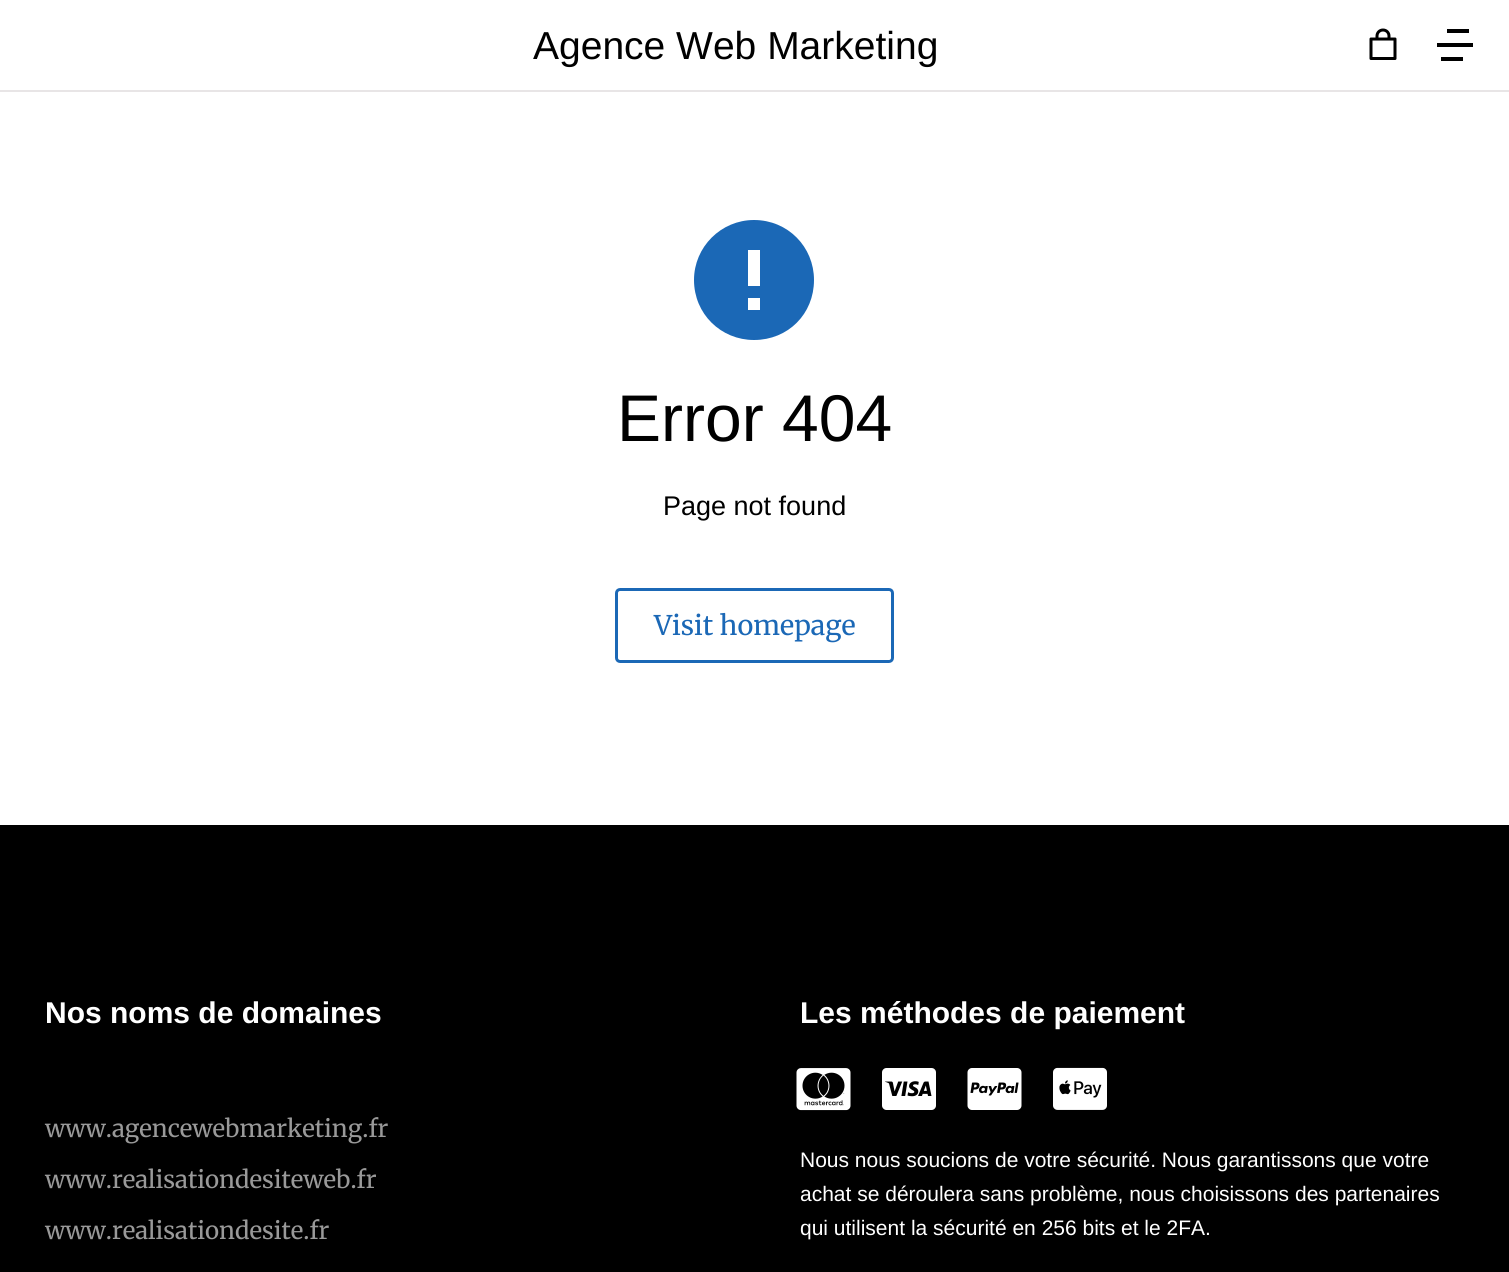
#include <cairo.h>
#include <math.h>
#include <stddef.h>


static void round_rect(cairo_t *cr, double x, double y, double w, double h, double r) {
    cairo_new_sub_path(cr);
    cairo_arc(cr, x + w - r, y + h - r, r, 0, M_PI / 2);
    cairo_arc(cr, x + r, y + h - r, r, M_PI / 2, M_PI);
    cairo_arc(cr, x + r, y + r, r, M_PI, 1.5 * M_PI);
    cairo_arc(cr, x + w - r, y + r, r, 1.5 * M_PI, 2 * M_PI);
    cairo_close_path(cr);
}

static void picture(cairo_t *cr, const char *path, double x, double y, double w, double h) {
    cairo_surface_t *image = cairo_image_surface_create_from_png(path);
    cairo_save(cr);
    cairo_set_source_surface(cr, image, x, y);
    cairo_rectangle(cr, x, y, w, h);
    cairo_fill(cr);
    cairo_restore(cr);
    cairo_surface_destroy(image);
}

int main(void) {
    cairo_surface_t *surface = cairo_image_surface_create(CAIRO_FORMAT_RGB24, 1509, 1272);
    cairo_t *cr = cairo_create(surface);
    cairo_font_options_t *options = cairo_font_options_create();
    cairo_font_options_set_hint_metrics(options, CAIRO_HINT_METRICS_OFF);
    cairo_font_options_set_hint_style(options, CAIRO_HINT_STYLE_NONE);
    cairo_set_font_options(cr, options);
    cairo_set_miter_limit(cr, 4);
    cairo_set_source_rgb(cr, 1, 1, 1);
    cairo_paint(cr);
    cairo_set_source_rgb(cr, 0.91, 0.898, 0.902);
    cairo_rectangle(cr, 0, 90, 1509, 2);
    cairo_fill(cr);
    cairo_select_font_face(cr, "Liberation Sans", CAIRO_FONT_SLANT_NORMAL, CAIRO_FONT_WEIGHT_NORMAL);
    cairo_set_font_size(cr, 39);
    cairo_set_source_rgb(cr, 0, 0, 0);
    cairo_move_to(cr, 533, 59);
    cairo_show_text(cr, "Agence Web Marketing");
    picture(cr, "img1.png", 1369, 28, 28, 32);
    cairo_new_path(cr);
    cairo_move_to(cr, 1463, 57);
    cairo_line_to(cr, 1463, 61);
    cairo_line_to(cr, 1441, 61);
    cairo_line_to(cr, 1441, 57);
    cairo_close_path(cr);
    cairo_move_to(cr, 1473, 43);
    cairo_line_to(cr, 1473, 47);
    cairo_line_to(cr, 1437, 47);
    cairo_line_to(cr, 1437, 43);
    cairo_close_path(cr);
    cairo_move_to(cr, 1469, 29);
    cairo_line_to(cr, 1469, 33);
    cairo_line_to(cr, 1447, 33);
    cairo_line_to(cr, 1447, 29);
    cairo_close_path(cr);
    cairo_fill(cr);
    cairo_set_source_rgb(cr, 0.106, 0.408, 0.714);
    cairo_new_path(cr);
    cairo_move_to(cr, 754, 340);
    cairo_curve_to(cr, 721, 340, 694, 314, 694, 280);
    cairo_curve_to(cr, 694, 247, 721, 220, 754, 220);
    cairo_curve_to(cr, 788, 220, 814, 247, 814, 280);
    cairo_curve_to(cr, 814, 314, 788, 340, 754, 340);
    cairo_close_path(cr);
    cairo_move_to(cr, 748, 298);
    cairo_line_to(cr, 748, 310);
    cairo_line_to(cr, 760, 310);
    cairo_line_to(cr, 760, 298);
    cairo_close_path(cr);
    cairo_move_to(cr, 748, 250);
    cairo_line_to(cr, 748, 286);
    cairo_line_to(cr, 760, 286);
    cairo_line_to(cr, 760, 250);
    cairo_close_path(cr);
    cairo_fill(cr);
    cairo_set_font_size(cr, 66);
    cairo_set_source_rgb(cr, 0, 0, 0);
    cairo_move_to(cr, 617, 441);
    cairo_show_text(cr, "Error 404");
    cairo_set_font_size(cr, 27);
    cairo_move_to(cr, 663, 515);
    cairo_show_text(cr, "Page not found");
    round_rect(cr, 616.5, 589.5, 276, 72, 3.5);
    cairo_set_source_rgb(cr, 0.106, 0.408, 0.714);
    cairo_set_line_width(cr, 3);
    cairo_stroke(cr);
    cairo_select_font_face(cr, "Merriweather", CAIRO_FONT_SLANT_NORMAL, CAIRO_FONT_WEIGHT_NORMAL);
    cairo_move_to(cr, 654, 635);
    cairo_show_text(cr, "Visit homepage");
    cairo_set_source_rgb(cr, 0, 0, 0);
    cairo_rectangle(cr, 0, 825, 1509, 447);
    cairo_fill(cr);
    cairo_select_font_face(cr, "Liberation Sans", CAIRO_FONT_SLANT_NORMAL, CAIRO_FONT_WEIGHT_BOLD);
    cairo_set_font_size(cr, 30);
    cairo_set_source_rgb(cr, 1, 1, 1);
    cairo_move_to(cr, 45, 1023);
    cairo_show_text(cr, "Nos noms de domaines");
    cairo_select_font_face(cr, "Merriweather", CAIRO_FONT_SLANT_NORMAL, CAIRO_FONT_WEIGHT_NORMAL);
    cairo_set_font_size(cr, 24);
    cairo_set_source_rgb(cr, 0.6, 0.6, 0.6);
    cairo_move_to(cr, 45, 1137);
    cairo_show_text(cr, "www.agencewebmarketing.fr");
    cairo_move_to(cr, 45, 1188);
    cairo_show_text(cr, "www.realisationdesiteweb.fr");
    cairo_move_to(cr, 45, 1239);
    cairo_show_text(cr, "www.realisationdesite.fr");
    cairo_select_font_face(cr, "Liberation Sans", CAIRO_FONT_SLANT_NORMAL, CAIRO_FONT_WEIGHT_BOLD);
    cairo_set_font_size(cr, 30);
    cairo_set_source_rgb(cr, 1, 1, 1);
    cairo_move_to(cr, 800, 1023);
    cairo_show_text(cr, "Les méthodes de paiement");
    picture(cr, "img2.png", 796, 1068, 55, 43);
    picture(cr, "img3.png", 882, 1068, 54, 42);
    picture(cr, "img4.png", 967, 1068, 55, 42);
    picture(cr, "img5.png", 1053, 1067, 54, 43);
    cairo_select_font_face(cr, "Liberation Sans", CAIRO_FONT_SLANT_NORMAL, CAIRO_FONT_WEIGHT_NORMAL);
    cairo_set_font_size(cr, 21);
    cairo_move_to(cr, 800, 1167);
    cairo_show_text(cr, "Nous nous soucions de votre sécurité. Nous garantissons que votre");
    cairo_move_to(cr, 800, 1201);
    cairo_show_text(cr, "achat se déroulera sans problème, nous choisissons des partenaires");
    cairo_move_to(cr, 800, 1235);
    cairo_show_text(cr, "qui utilisent la sécurité en 256 bits et le 2FA.");
    cairo_surface_write_to_png(surface, "page.png");
    cairo_font_options_destroy(options);
    cairo_destroy(cr);
    cairo_surface_destroy(surface);
    return 0;
}
